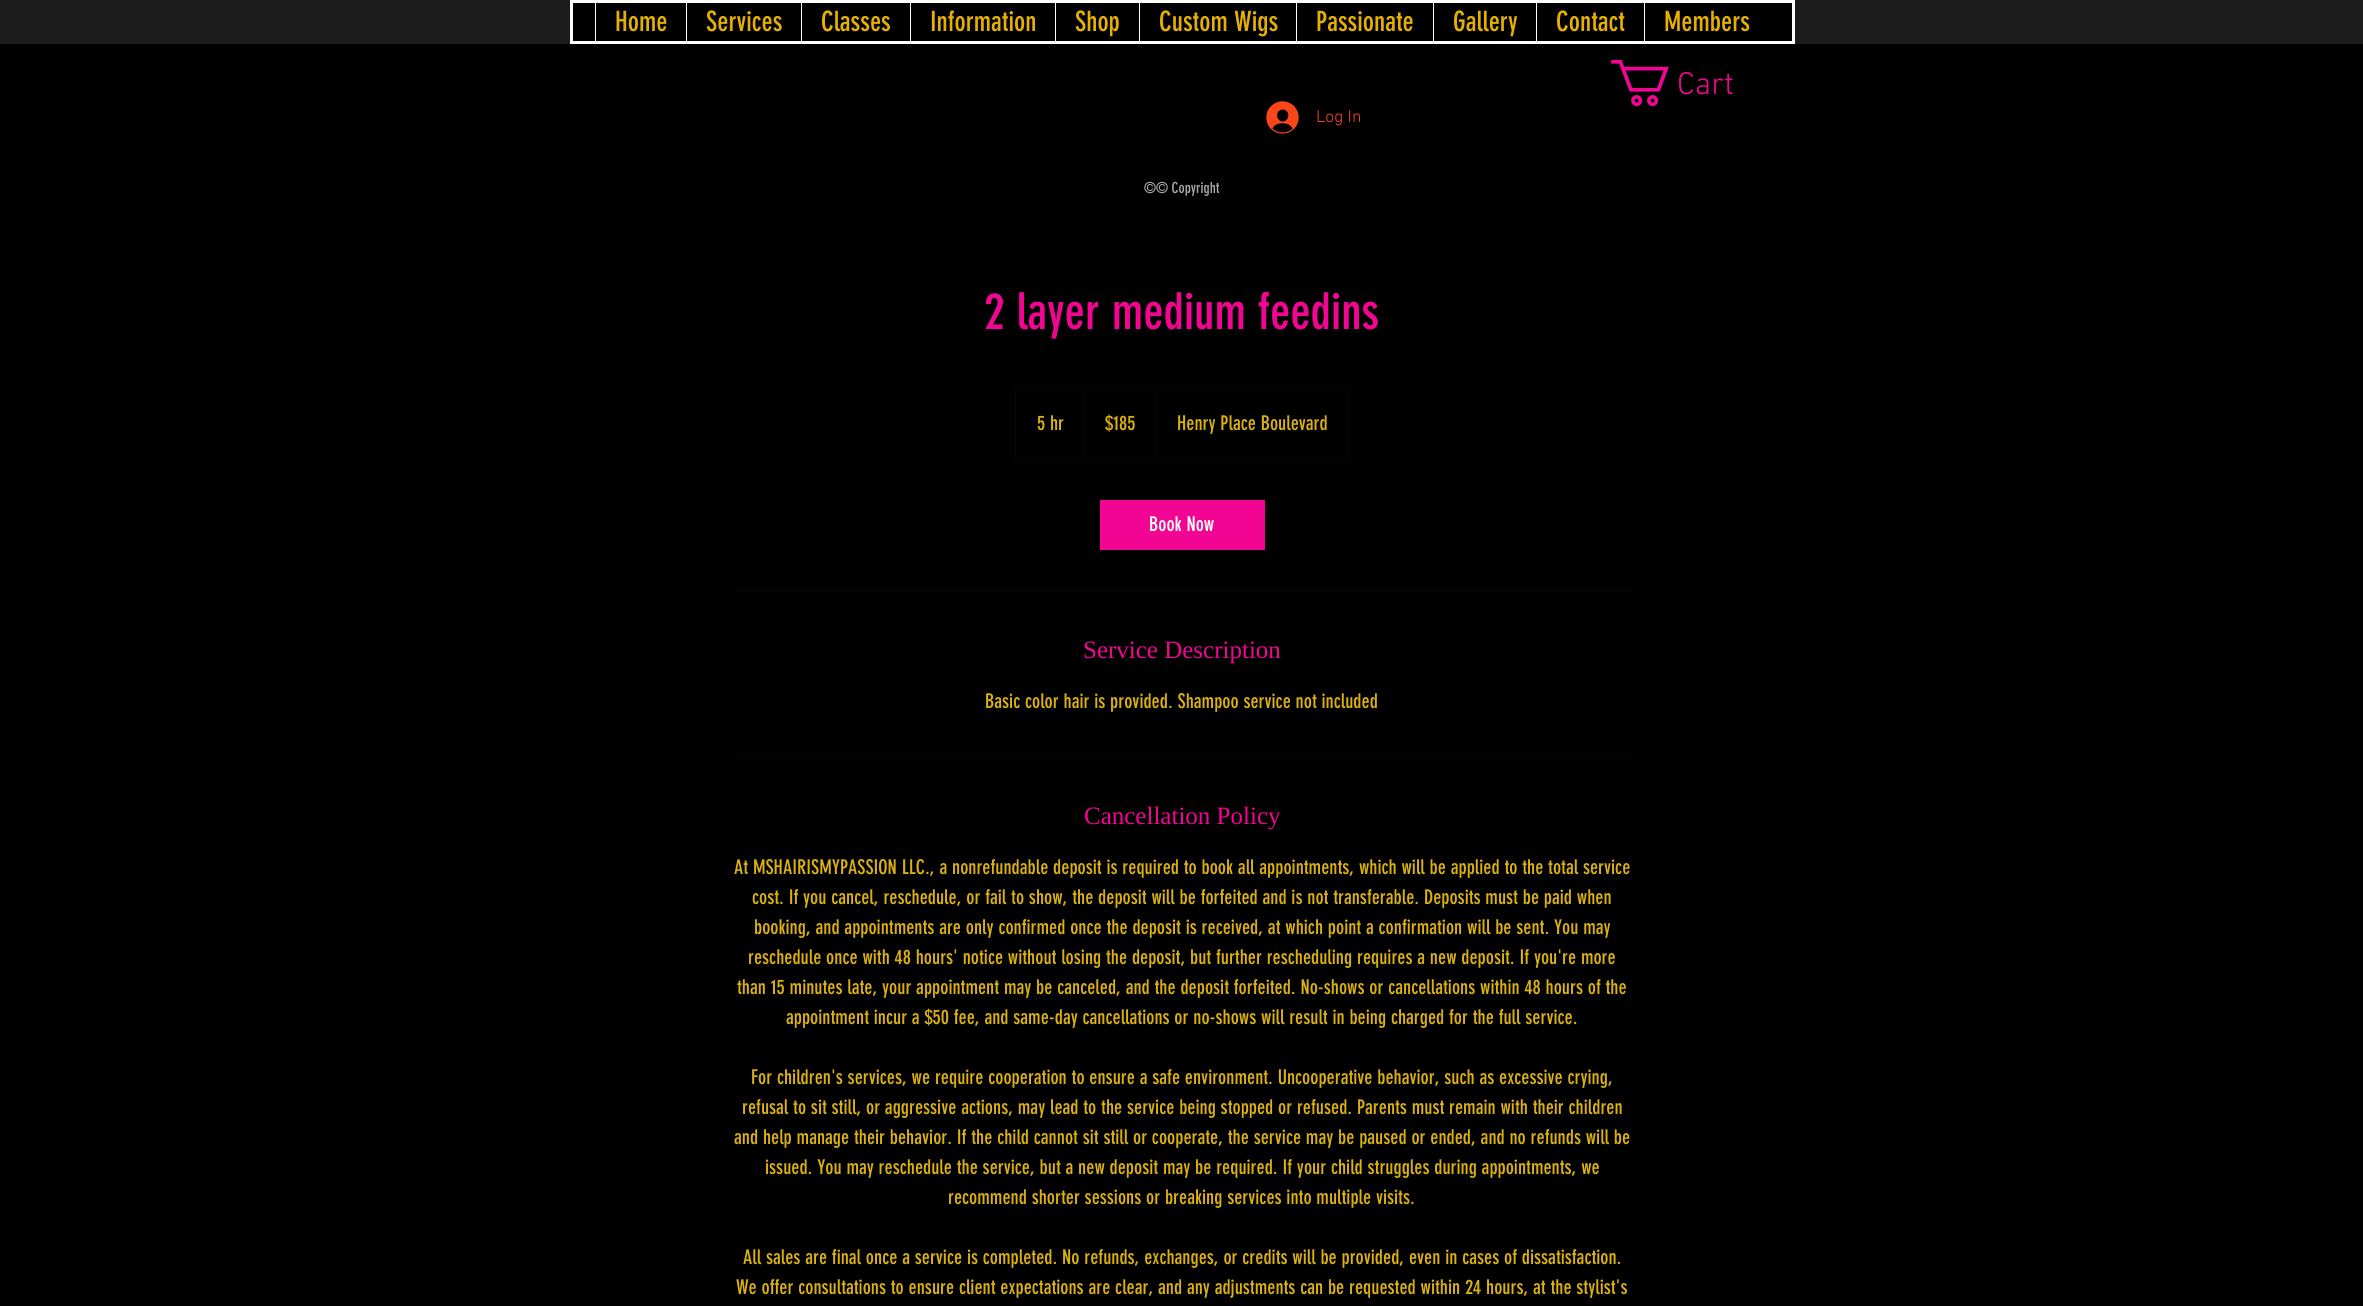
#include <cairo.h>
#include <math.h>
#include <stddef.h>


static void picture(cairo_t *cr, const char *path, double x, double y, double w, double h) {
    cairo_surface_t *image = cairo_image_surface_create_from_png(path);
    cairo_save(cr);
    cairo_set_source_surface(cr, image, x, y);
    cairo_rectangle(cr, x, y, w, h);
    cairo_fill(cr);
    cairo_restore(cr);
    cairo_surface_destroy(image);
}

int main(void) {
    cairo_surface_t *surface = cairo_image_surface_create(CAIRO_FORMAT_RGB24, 2363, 1306);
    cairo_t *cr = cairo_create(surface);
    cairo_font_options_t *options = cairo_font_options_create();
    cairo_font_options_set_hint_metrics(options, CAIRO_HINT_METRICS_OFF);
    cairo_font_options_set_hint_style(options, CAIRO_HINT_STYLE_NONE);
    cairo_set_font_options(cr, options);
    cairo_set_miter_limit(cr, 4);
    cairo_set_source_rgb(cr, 0, 0, 0);
    cairo_paint(cr);
    cairo_set_source_rgb(cr, 0.11, 0.11, 0.11);
    cairo_rectangle(cr, 0, 0, 2363, 44);
    cairo_fill(cr);
    cairo_set_source_rgb(cr, 0, 0, 0);
    cairo_rectangle(cr, 571.5, 1.5, 1222, 41);
    cairo_fill_preserve(cr);
    cairo_set_source_rgb(cr, 1, 1, 1);
    cairo_set_line_width(cr, 3);
    cairo_stroke(cr);
    cairo_rectangle(cr, 595, 3, 1, 38);
    cairo_fill(cr);
    cairo_select_font_face(cr, "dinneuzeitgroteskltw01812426", CAIRO_FONT_SLANT_NORMAL, CAIRO_FONT_WEIGHT_NORMAL);
    cairo_set_font_size(cr, 27.5);
    cairo_set_source_rgb(cr, 0.902, 0.69, 0);
    cairo_move_to(cr, 615, 31);
    cairo_show_text(cr, "Home");
    cairo_set_source_rgb(cr, 1, 1, 1);
    cairo_rectangle(cr, 686, 3, 1, 38);
    cairo_fill(cr);
    cairo_set_source_rgb(cr, 0.902, 0.69, 0);
    cairo_move_to(cr, 706, 31);
    cairo_show_text(cr, "Services");
    cairo_set_source_rgb(cr, 1, 1, 1);
    cairo_rectangle(cr, 801, 3, 1, 38);
    cairo_fill(cr);
    cairo_set_source_rgb(cr, 0.902, 0.69, 0);
    cairo_move_to(cr, 821, 31);
    cairo_show_text(cr, "Classes");
    cairo_set_source_rgb(cr, 1, 1, 1);
    cairo_rectangle(cr, 910, 3, 1, 38);
    cairo_fill(cr);
    cairo_set_source_rgb(cr, 0.902, 0.69, 0);
    cairo_move_to(cr, 930, 31);
    cairo_show_text(cr, "Information");
    cairo_set_source_rgb(cr, 1, 1, 1);
    cairo_rectangle(cr, 1055, 3, 1, 38);
    cairo_fill(cr);
    cairo_set_source_rgb(cr, 0.902, 0.69, 0);
    cairo_move_to(cr, 1075, 31);
    cairo_show_text(cr, "Shop");
    cairo_set_source_rgb(cr, 1, 1, 1);
    cairo_rectangle(cr, 1139, 3, 1, 38);
    cairo_fill(cr);
    cairo_set_source_rgb(cr, 0.902, 0.69, 0);
    cairo_move_to(cr, 1159, 31);
    cairo_show_text(cr, "Custom Wigs");
    cairo_set_source_rgb(cr, 1, 1, 1);
    cairo_rectangle(cr, 1296, 3, 1, 38);
    cairo_fill(cr);
    cairo_set_source_rgb(cr, 0.902, 0.69, 0);
    cairo_move_to(cr, 1316, 31);
    cairo_show_text(cr, "Passionate");
    cairo_set_source_rgb(cr, 1, 1, 1);
    cairo_rectangle(cr, 1433, 3, 1, 38);
    cairo_fill(cr);
    cairo_set_source_rgb(cr, 0.902, 0.69, 0);
    cairo_move_to(cr, 1453, 31);
    cairo_show_text(cr, "Gallery");
    cairo_set_source_rgb(cr, 1, 1, 1);
    cairo_rectangle(cr, 1536, 3, 1, 38);
    cairo_fill(cr);
    cairo_set_source_rgb(cr, 0.902, 0.69, 0);
    cairo_move_to(cr, 1556, 31);
    cairo_show_text(cr, "Contact");
    cairo_set_source_rgb(cr, 1, 1, 1);
    cairo_rectangle(cr, 1644, 3, 1, 38);
    cairo_fill(cr);
    cairo_set_source_rgb(cr, 0.902, 0.69, 0);
    cairo_move_to(cr, 1664, 31);
    cairo_show_text(cr, "Members");
    picture(cr, "img1.png", 1611, 60, 58, 47);
    cairo_select_font_face(cr, "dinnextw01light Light", CAIRO_FONT_SLANT_NORMAL, CAIRO_FONT_WEIGHT_NORMAL);
    cairo_set_font_size(cr, 32);
    cairo_set_source_rgb(cr, 0.949, 0.02, 0.576);
    cairo_move_to(cr, 1677, 94);
    cairo_show_text(cr, "Cart");
    picture(cr, "img2.png", 1266, 101, 33, 33);
    cairo_set_font_size(cr, 17.5);
    cairo_set_source_rgb(cr, 0.98, 0.275, 0.098);
    cairo_move_to(cr, 1316, 122);
    cairo_show_text(cr, "Log In");
    cairo_select_font_face(cr, "dinneuzeitgroteskltw01812426", CAIRO_FONT_SLANT_NORMAL, CAIRO_FONT_WEIGHT_NORMAL);
    cairo_set_font_size(cr, 15);
    cairo_set_source_rgb(cr, 0.667, 0.659, 0.659);
    cairo_move_to(cr, 1144, 193);
    cairo_show_text(cr, "©© Copyright");
    cairo_set_font_size(cr, 50);
    cairo_set_source_rgb(cr, 0.949, 0.02, 0.576);
    cairo_move_to(cr, 984, 329);
    cairo_show_text(cr, "2 layer medium feedins");
    cairo_rectangle(cr, 1015.5, 388.5, 333, 71);
    cairo_set_source_rgb(cr, 0.024, 0.024, 0.024);
    cairo_set_line_width(cr, 1);
    cairo_stroke(cr);
    cairo_set_font_size(cr, 20);
    cairo_set_source_rgb(cr, 0.859, 0.694, 0.063);
    cairo_move_to(cr, 1037, 430);
    cairo_show_text(cr, "5 hr");
    cairo_set_source_rgb(cr, 0.024, 0.024, 0.024);
    cairo_new_path(cr);
    cairo_move_to(cr, 1084, 459);
    cairo_line_to(cr, 1084, 388);
    cairo_line_to(cr, 1085, 389);
    cairo_line_to(cr, 1085, 459);
    cairo_close_path(cr);
    cairo_fill(cr);
    cairo_set_source_rgb(cr, 0.859, 0.694, 0.063);
    cairo_move_to(cr, 1105, 430);
    cairo_show_text(cr, "$185");
    cairo_set_source_rgb(cr, 0.024, 0.024, 0.024);
    cairo_new_path(cr);
    cairo_move_to(cr, 1155, 459);
    cairo_line_to(cr, 1155, 388);
    cairo_line_to(cr, 1156, 389);
    cairo_line_to(cr, 1156, 459);
    cairo_close_path(cr);
    cairo_fill(cr);
    cairo_set_source_rgb(cr, 0.859, 0.694, 0.063);
    cairo_move_to(cr, 1177, 430);
    cairo_show_text(cr, "Henry Place Boulevard");
    cairo_set_source_rgb(cr, 0.949, 0.02, 0.576);
    cairo_rectangle(cr, 1100, 500, 165, 50);
    cairo_fill(cr);
    cairo_set_source_rgb(cr, 1, 1, 1);
    cairo_move_to(cr, 1149, 531);
    cairo_show_text(cr, "Book Now");
    cairo_set_source_rgb(cr, 0.024, 0.024, 0.024);
    cairo_rectangle(cr, 733, 590, 900, 1);
    cairo_fill(cr);
    cairo_select_font_face(cr, "Liberation Serif", CAIRO_FONT_SLANT_NORMAL, CAIRO_FONT_WEIGHT_NORMAL);
    cairo_set_font_size(cr, 25);
    cairo_set_source_rgb(cr, 0.949, 0.02, 0.576);
    cairo_move_to(cr, 1083, 658);
    cairo_show_text(cr, "Service Description");
    cairo_select_font_face(cr, "dinneuzeitgroteskltw01812426", CAIRO_FONT_SLANT_NORMAL, CAIRO_FONT_WEIGHT_NORMAL);
    cairo_set_font_size(cr, 20);
    cairo_set_source_rgb(cr, 0.859, 0.694, 0.063);
    cairo_move_to(cr, 985, 708);
    cairo_show_text(cr, "Basic color hair is provided. Shampoo service not included");
    cairo_set_source_rgb(cr, 0.024, 0.024, 0.024);
    cairo_rectangle(cr, 733, 756, 900, 1);
    cairo_fill(cr);
    cairo_select_font_face(cr, "Liberation Serif", CAIRO_FONT_SLANT_NORMAL, CAIRO_FONT_WEIGHT_NORMAL);
    cairo_set_font_size(cr, 25);
    cairo_set_source_rgb(cr, 0.949, 0.02, 0.576);
    cairo_move_to(cr, 1084, 824);
    cairo_show_text(cr, "Cancellation Policy");
    cairo_select_font_face(cr, "dinneuzeitgroteskltw01812426", CAIRO_FONT_SLANT_NORMAL, CAIRO_FONT_WEIGHT_NORMAL);
    cairo_set_font_size(cr, 20);
    cairo_set_source_rgb(cr, 0.859, 0.694, 0.063);
    cairo_move_to(cr, 734, 874);
    cairo_show_text(cr, "At MSHAIRISMYPASSION LLC., a nonrefundable deposit is required to book all appointments, which will be applied to the total service");
    cairo_move_to(cr, 752, 904);
    cairo_show_text(cr, "cost. If you cancel, reschedule, or fail to show, the deposit will be forfeited and is not transferable. Deposits must be paid when");
    cairo_move_to(cr, 754, 934);
    cairo_show_text(cr, "booking, and appointments are only confirmed once the deposit is received, at which point a confirmation will be sent. You may");
    cairo_move_to(cr, 748, 964);
    cairo_show_text(cr, "reschedule once with 48 hours' notice without losing the deposit, but further rescheduling requires a new deposit. If you're more");
    cairo_move_to(cr, 737, 994);
    cairo_show_text(cr, "than 15 minutes late, your appointment may be canceled, and the deposit forfeited. No-shows or cancellations within 48 hours of the");
    cairo_move_to(cr, 786, 1024);
    cairo_show_text(cr, "appointment incur a $50 fee, and same-day cancellations or no-shows will result in being charged for the full service.");
    cairo_move_to(cr, 751, 1084);
    cairo_show_text(cr, "For children's services, we require cooperation to ensure a safe environment. Uncooperative behavior, such as excessive crying,");
    cairo_move_to(cr, 742, 1114);
    cairo_show_text(cr, "refusal to sit still, or aggressive actions, may lead to the service being stopped or refused. Parents must remain with their children");
    cairo_move_to(cr, 734, 1144);
    cairo_show_text(cr, "and help manage their behavior. If the child cannot sit still or cooperate, the service may be paused or ended, and no refunds will be");
    cairo_move_to(cr, 765, 1174);
    cairo_show_text(cr, "issued. You may reschedule the service, but a new deposit may be required. If your child struggles during appointments, we");
    cairo_move_to(cr, 948, 1204);
    cairo_show_text(cr, "recommend shorter sessions or breaking services into multiple visits.");
    cairo_move_to(cr, 743, 1264);
    cairo_show_text(cr, "All sales are final once a service is completed. No refunds, exchanges, or credits will be provided, even in cases of dissatisfaction.");
    cairo_move_to(cr, 736, 1294);
    cairo_show_text(cr, "We offer consultations to ensure client expectations are clear, and any adjustments can be requested within 24 hours, at the stylist's");
    cairo_surface_write_to_png(surface, "page.png");
    cairo_font_options_destroy(options);
    cairo_destroy(cr);
    cairo_surface_destroy(surface);
    return 0;
}
